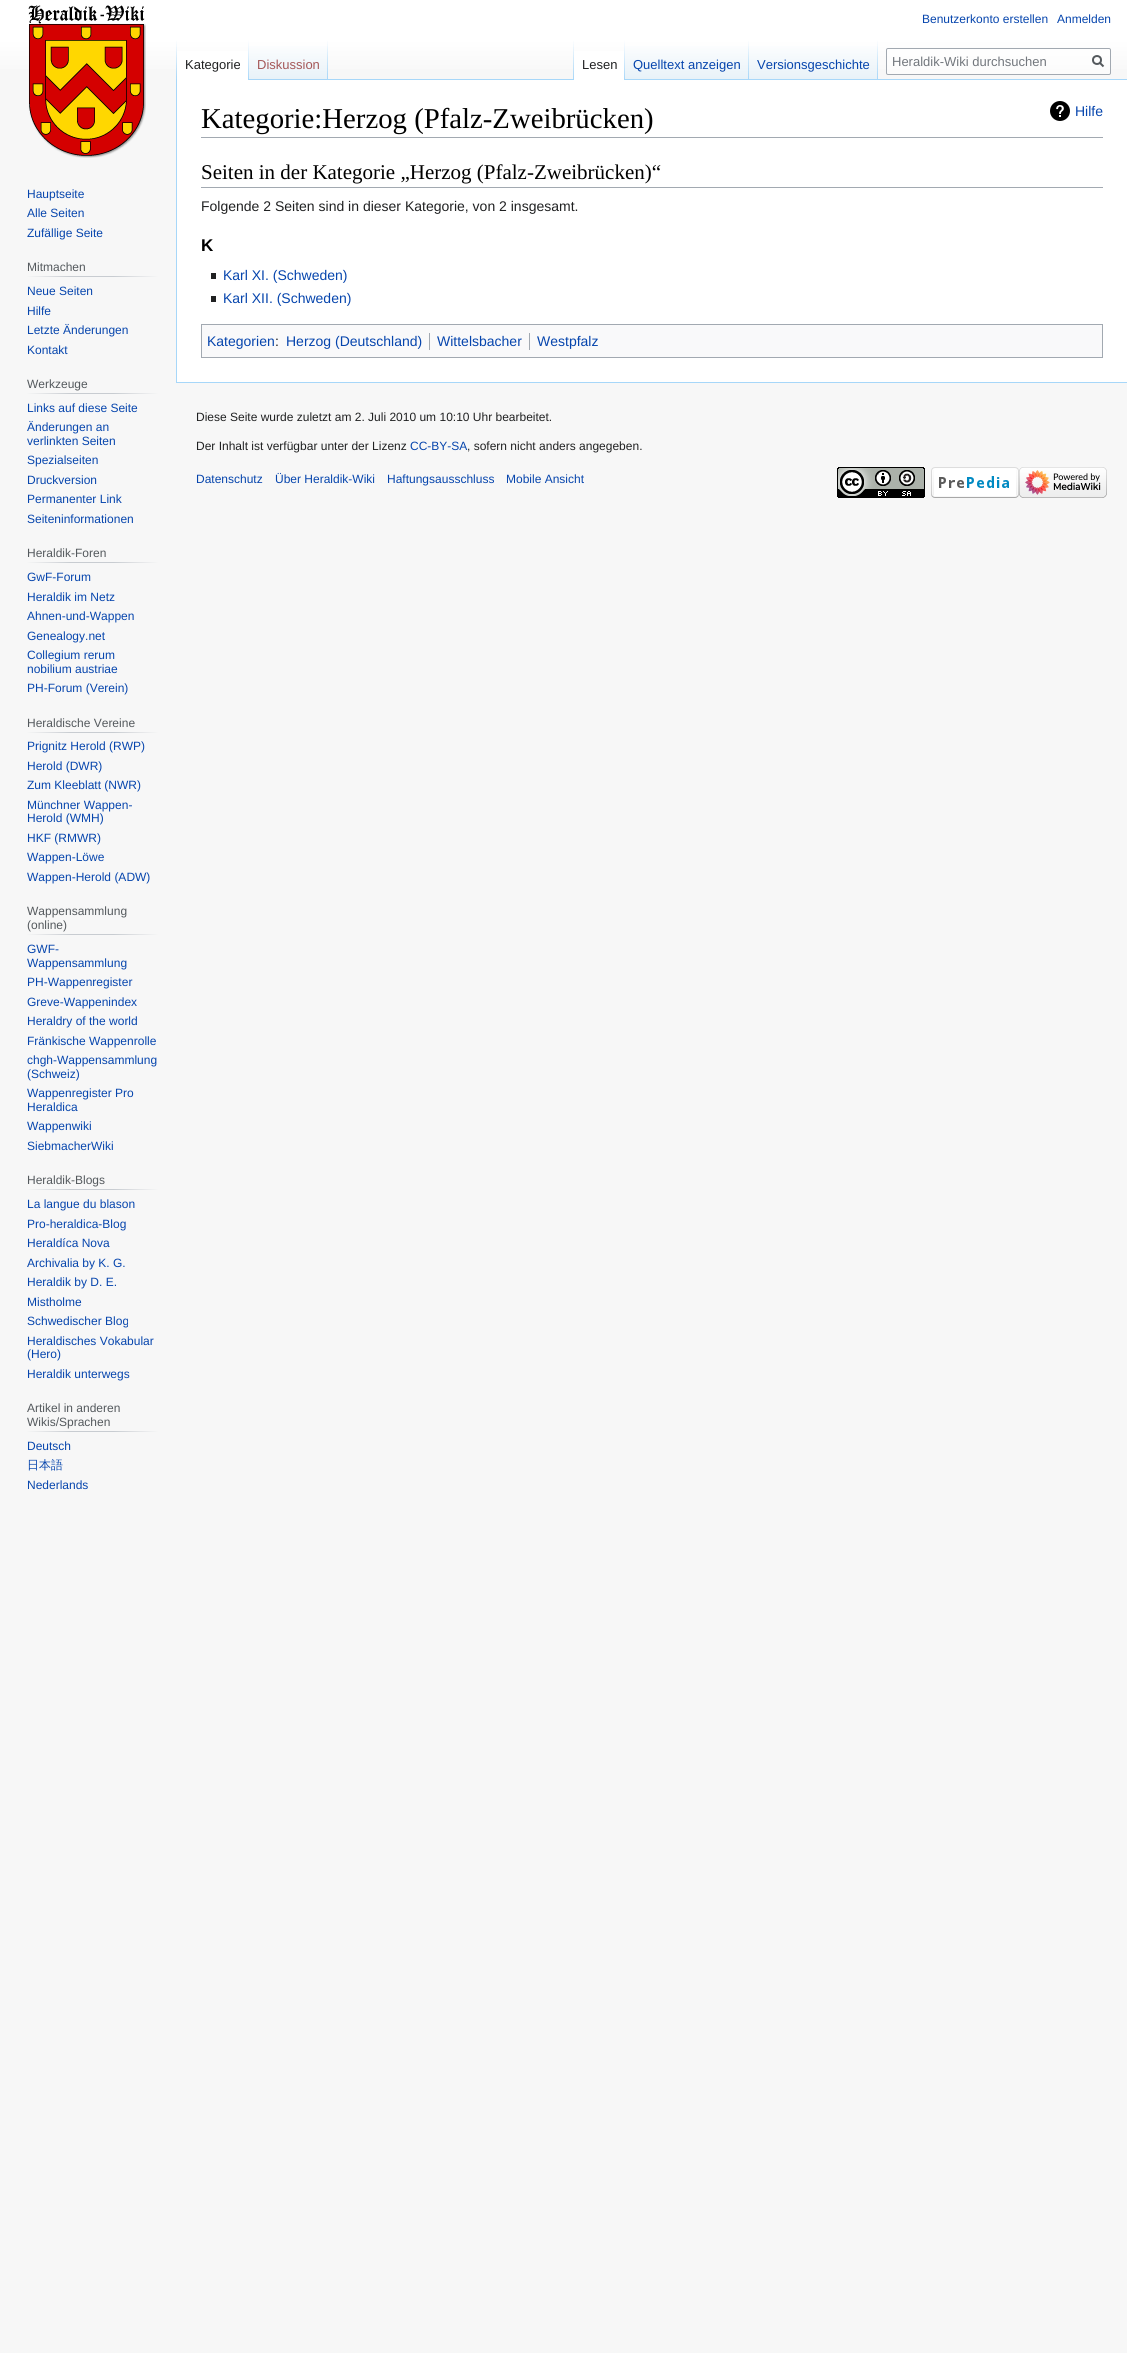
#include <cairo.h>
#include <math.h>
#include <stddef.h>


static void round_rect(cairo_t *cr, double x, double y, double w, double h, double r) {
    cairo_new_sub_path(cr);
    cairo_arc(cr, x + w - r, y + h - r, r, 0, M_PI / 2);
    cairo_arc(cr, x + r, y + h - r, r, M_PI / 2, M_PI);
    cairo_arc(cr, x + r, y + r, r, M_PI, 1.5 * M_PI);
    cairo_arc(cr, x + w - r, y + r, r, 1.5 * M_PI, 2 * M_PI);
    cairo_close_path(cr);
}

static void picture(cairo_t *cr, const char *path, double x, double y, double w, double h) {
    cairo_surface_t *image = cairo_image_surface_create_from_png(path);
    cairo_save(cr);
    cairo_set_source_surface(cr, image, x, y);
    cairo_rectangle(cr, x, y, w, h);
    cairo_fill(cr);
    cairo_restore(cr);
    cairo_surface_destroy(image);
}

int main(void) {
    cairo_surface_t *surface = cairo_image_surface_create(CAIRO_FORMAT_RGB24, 1127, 2353);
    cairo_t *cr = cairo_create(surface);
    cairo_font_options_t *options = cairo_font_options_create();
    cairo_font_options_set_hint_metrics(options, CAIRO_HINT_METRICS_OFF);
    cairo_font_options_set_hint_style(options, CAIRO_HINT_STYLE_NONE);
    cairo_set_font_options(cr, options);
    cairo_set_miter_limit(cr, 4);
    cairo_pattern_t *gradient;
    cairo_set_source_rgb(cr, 0.965, 0.965, 0.965);
    cairo_paint(cr);
    gradient = cairo_pattern_create_linear(564, 0, 564, 80);
    cairo_pattern_add_color_stop_rgba(gradient, 0.5, 1, 1, 1, 1);
    cairo_pattern_add_color_stop_rgba(gradient, 1, 0.965, 0.965, 0.965, 1);
    cairo_set_source(cr, gradient);
    cairo_pattern_destroy(gradient);
    cairo_rectangle(cr, 0, 0, 1127, 69);
    cairo_fill(cr);
    cairo_select_font_face(cr, "Liberation Sans", CAIRO_FONT_SLANT_NORMAL, CAIRO_FONT_WEIGHT_NORMAL);
    cairo_set_font_size(cr, 12);
    cairo_set_source_rgb(cr, 0.024, 0.271, 0.678);
    cairo_move_to(cr, 922, 23);
    cairo_show_text(cr, "Benutzerkonto erstellen");
    cairo_move_to(cr, 1057, 23);
    cairo_show_text(cr, "Anmelden");
    cairo_set_source_rgb(cr, 0.655, 0.843, 0.976);
    cairo_rectangle(cr, 176, 382, 951, 1);
    cairo_fill(cr);
    cairo_rectangle(cr, 176, 79, 1, 304);
    cairo_fill(cr);
    gradient = cairo_pattern_create_linear(177, 40, 177, 80);
    cairo_pattern_add_color_stop_rgba(gradient, 0, 0.655, 0.843, 0.976, 0);
    cairo_pattern_add_color_stop_rgba(gradient, 1, 0.655, 0.843, 0.976, 1);
    cairo_set_source(cr, gradient);
    cairo_pattern_destroy(gradient);
    cairo_rectangle(cr, 176, 40, 1, 40);
    cairo_fill(cr);
    cairo_set_source_rgb(cr, 1, 1, 1);
    cairo_rectangle(cr, 177, 51, 71, 29);
    cairo_fill(cr);
    gradient = cairo_pattern_create_linear(249, 40, 249, 80);
    cairo_pattern_add_color_stop_rgba(gradient, 0, 1, 1, 1, 1);
    cairo_pattern_add_color_stop_rgba(gradient, 1, 0.655, 0.843, 0.976, 1);
    cairo_set_source(cr, gradient);
    cairo_pattern_destroy(gradient);
    cairo_rectangle(cr, 248, 40, 1, 40);
    cairo_fill(cr);
    cairo_set_font_size(cr, 13);
    cairo_set_source_rgb(cr, 0.125, 0.129, 0.133);
    cairo_move_to(cr, 185, 69);
    cairo_show_text(cr, "Kategorie");
    gradient = cairo_pattern_create_linear(289, 80, 289, 40);
    cairo_pattern_add_color_stop_rgba(gradient, 0, 0.467, 0.757, 0.965, 1);
    cairo_pattern_add_color_stop_rgba(gradient, 0.03, 0.91, 0.949, 0.973, 1);
    cairo_pattern_add_color_stop_rgba(gradient, 1, 1, 1, 1, 1);
    cairo_set_source(cr, gradient);
    cairo_pattern_destroy(gradient);
    cairo_rectangle(cr, 249, 46, 79, 34);
    cairo_fill(cr);
    gradient = cairo_pattern_create_linear(328, 40, 328, 80);
    cairo_pattern_add_color_stop_rgba(gradient, 0, 0.655, 0.843, 0.976, 0);
    cairo_pattern_add_color_stop_rgba(gradient, 1, 0.655, 0.843, 0.976, 1);
    cairo_set_source(cr, gradient);
    cairo_pattern_destroy(gradient);
    cairo_rectangle(cr, 327, 40, 1, 40);
    cairo_fill(cr);
    cairo_set_source_rgb(cr, 0.647, 0.345, 0.345);
    cairo_move_to(cr, 257, 69);
    cairo_show_text(cr, "Diskussion");
    cairo_set_source_rgb(cr, 0.655, 0.843, 0.976);
    cairo_rectangle(cr, 328, 79, 799, 1);
    cairo_fill(cr);
    gradient = cairo_pattern_create_linear(574, 40, 574, 80);
    cairo_pattern_add_color_stop_rgba(gradient, 0, 0.655, 0.843, 0.976, 0);
    cairo_pattern_add_color_stop_rgba(gradient, 1, 0.655, 0.843, 0.976, 1);
    cairo_set_source(cr, gradient);
    cairo_pattern_destroy(gradient);
    cairo_rectangle(cr, 573, 40, 1, 40);
    cairo_fill(cr);
    cairo_set_source_rgb(cr, 1, 1, 1);
    cairo_rectangle(cr, 574, 51, 50, 29);
    cairo_fill(cr);
    gradient = cairo_pattern_create_linear(625, 40, 625, 80);
    cairo_pattern_add_color_stop_rgba(gradient, 0, 1, 1, 1, 1);
    cairo_pattern_add_color_stop_rgba(gradient, 1, 0.655, 0.843, 0.976, 1);
    cairo_set_source(cr, gradient);
    cairo_pattern_destroy(gradient);
    cairo_rectangle(cr, 624, 40, 1, 40);
    cairo_fill(cr);
    cairo_set_source_rgb(cr, 0.125, 0.129, 0.133);
    cairo_move_to(cr, 582, 69);
    cairo_show_text(cr, "Lesen");
    gradient = cairo_pattern_create_linear(687, 80, 687, 40);
    cairo_pattern_add_color_stop_rgba(gradient, 0, 0.467, 0.757, 0.965, 1);
    cairo_pattern_add_color_stop_rgba(gradient, 0.03, 0.91, 0.949, 0.973, 1);
    cairo_pattern_add_color_stop_rgba(gradient, 1, 1, 1, 1, 1);
    cairo_set_source(cr, gradient);
    cairo_pattern_destroy(gradient);
    cairo_rectangle(cr, 625, 46, 124, 33);
    cairo_fill(cr);
    gradient = cairo_pattern_create_linear(749, 40, 749, 80);
    cairo_pattern_add_color_stop_rgba(gradient, 0, 0.655, 0.843, 0.976, 0);
    cairo_pattern_add_color_stop_rgba(gradient, 1, 0.655, 0.843, 0.976, 1);
    cairo_set_source(cr, gradient);
    cairo_pattern_destroy(gradient);
    cairo_rectangle(cr, 748, 40, 1, 40);
    cairo_fill(cr);
    cairo_set_source_rgb(cr, 0.024, 0.271, 0.678);
    cairo_move_to(cr, 633, 69);
    cairo_show_text(cr, "Quelltext anzeigen");
    gradient = cairo_pattern_create_linear(814, 80, 814, 40);
    cairo_pattern_add_color_stop_rgba(gradient, 0, 0.467, 0.757, 0.965, 1);
    cairo_pattern_add_color_stop_rgba(gradient, 0.03, 0.91, 0.949, 0.973, 1);
    cairo_pattern_add_color_stop_rgba(gradient, 1, 1, 1, 1, 1);
    cairo_set_source(cr, gradient);
    cairo_pattern_destroy(gradient);
    cairo_rectangle(cr, 749, 46, 129, 33);
    cairo_fill(cr);
    gradient = cairo_pattern_create_linear(878, 40, 878, 80);
    cairo_pattern_add_color_stop_rgba(gradient, 0, 0.655, 0.843, 0.976, 0);
    cairo_pattern_add_color_stop_rgba(gradient, 1, 0.655, 0.843, 0.976, 1);
    cairo_set_source(cr, gradient);
    cairo_pattern_destroy(gradient);
    cairo_rectangle(cr, 877, 40, 1, 40);
    cairo_fill(cr);
    cairo_set_source_rgb(cr, 0.024, 0.271, 0.678);
    cairo_move_to(cr, 757, 69);
    cairo_show_text(cr, "Versionsgeschichte");
    cairo_set_source_rgba(cr, 1, 1, 1, 0.5);
    round_rect(cr, 886.5, 48.5, 224, 26, 1.5);
    cairo_fill_preserve(cr);
    cairo_set_source_rgb(cr, 0.635, 0.663, 0.694);
    cairo_set_line_width(cr, 1);
    cairo_stroke(cr);
    cairo_set_source_rgb(cr, 0.447, 0.467, 0.49);
    cairo_move_to(cr, 892, 66);
    cairo_show_text(cr, "Heraldik-Wiki durchsuchen");
    cairo_new_path(cr);
    cairo_move_to(cr, 1103.5, 66.5);
    cairo_line_to(cr, 1099.5, 62.5);
    cairo_set_source_rgb(cr, 0.329, 0.349, 0.365);
    cairo_set_line_width(cr, 2);
    cairo_stroke(cr);
    cairo_arc(cr, 1097, 60, 4, 0, 2 * M_PI);
    cairo_stroke(cr);
    picture(cr, "img1.png", 28, 5, 118, 153);
    cairo_set_font_size(cr, 12);
    cairo_set_source_rgb(cr, 0.024, 0.271, 0.678);
    cairo_move_to(cr, 27, 198);
    cairo_show_text(cr, "Hauptseite");
    cairo_move_to(cr, 27, 217);
    cairo_show_text(cr, "Alle Seiten");
    cairo_move_to(cr, 27, 237);
    cairo_show_text(cr, "Zufällige Seite");
    gradient = cairo_pattern_create_linear(27, 277, 158, 277);
    cairo_pattern_add_color_stop_rgba(gradient, 0, 0.965, 0.965, 0.965, 1);
    cairo_pattern_add_color_stop_rgba(gradient, 0.33, 0.784, 0.8, 0.82, 1);
    cairo_pattern_add_color_stop_rgba(gradient, 0.66, 0.784, 0.8, 0.82, 1);
    cairo_pattern_add_color_stop_rgba(gradient, 1, 0.965, 0.965, 0.965, 1);
    cairo_set_source(cr, gradient);
    cairo_pattern_destroy(gradient);
    cairo_rectangle(cr, 27, 276, 131, 1);
    cairo_fill(cr);
    cairo_set_source_rgb(cr, 0.329, 0.349, 0.365);
    cairo_move_to(cr, 27, 271);
    cairo_show_text(cr, "Mitmachen");
    cairo_set_source_rgb(cr, 0.024, 0.271, 0.678);
    cairo_move_to(cr, 27, 295);
    cairo_show_text(cr, "Neue Seiten");
    cairo_move_to(cr, 27, 315);
    cairo_show_text(cr, "Hilfe");
    cairo_move_to(cr, 27, 334);
    cairo_show_text(cr, "Letzte Änderungen");
    cairo_move_to(cr, 27, 354);
    cairo_show_text(cr, "Kontakt");
    gradient = cairo_pattern_create_linear(27, 394, 158, 394);
    cairo_pattern_add_color_stop_rgba(gradient, 0, 0.965, 0.965, 0.965, 1);
    cairo_pattern_add_color_stop_rgba(gradient, 0.33, 0.784, 0.8, 0.82, 1);
    cairo_pattern_add_color_stop_rgba(gradient, 0.66, 0.784, 0.8, 0.82, 1);
    cairo_pattern_add_color_stop_rgba(gradient, 1, 0.965, 0.965, 0.965, 1);
    cairo_set_source(cr, gradient);
    cairo_pattern_destroy(gradient);
    cairo_rectangle(cr, 27, 393, 131, 1);
    cairo_fill(cr);
    cairo_set_source_rgb(cr, 0.329, 0.349, 0.365);
    cairo_move_to(cr, 27, 388);
    cairo_show_text(cr, "Werkzeuge");
    cairo_set_source_rgb(cr, 0.024, 0.271, 0.678);
    cairo_move_to(cr, 27, 412);
    cairo_show_text(cr, "Links auf diese Seite");
    cairo_move_to(cr, 27, 431);
    cairo_show_text(cr, "Änderungen an");
    cairo_move_to(cr, 27, 445);
    cairo_show_text(cr, "verlinkten Seiten");
    cairo_move_to(cr, 27, 464);
    cairo_show_text(cr, "Spezialseiten");
    cairo_move_to(cr, 27, 484);
    cairo_show_text(cr, "Druckversion");
    cairo_move_to(cr, 27, 503);
    cairo_show_text(cr, "Permanenter Link");
    cairo_move_to(cr, 27, 523);
    cairo_show_text(cr, "Seiteninformationen");
    gradient = cairo_pattern_create_linear(27, 563, 158, 563);
    cairo_pattern_add_color_stop_rgba(gradient, 0, 0.965, 0.965, 0.965, 1);
    cairo_pattern_add_color_stop_rgba(gradient, 0.33, 0.784, 0.8, 0.82, 1);
    cairo_pattern_add_color_stop_rgba(gradient, 0.66, 0.784, 0.8, 0.82, 1);
    cairo_pattern_add_color_stop_rgba(gradient, 1, 0.965, 0.965, 0.965, 1);
    cairo_set_source(cr, gradient);
    cairo_pattern_destroy(gradient);
    cairo_rectangle(cr, 27, 562, 131, 1);
    cairo_fill(cr);
    cairo_set_source_rgb(cr, 0.329, 0.349, 0.365);
    cairo_move_to(cr, 27, 557);
    cairo_show_text(cr, "Heraldik-Foren");
    cairo_set_source_rgb(cr, 0.024, 0.271, 0.678);
    cairo_move_to(cr, 27, 581);
    cairo_show_text(cr, "GwF-Forum");
    cairo_move_to(cr, 27, 601);
    cairo_show_text(cr, "Heraldik im Netz");
    cairo_move_to(cr, 27, 620);
    cairo_show_text(cr, "Ahnen-und-Wappen");
    cairo_move_to(cr, 27, 640);
    cairo_show_text(cr, "Genealogy.net");
    cairo_move_to(cr, 27, 659);
    cairo_show_text(cr, "Collegium rerum");
    cairo_move_to(cr, 27, 673);
    cairo_show_text(cr, "nobilium austriae");
    cairo_move_to(cr, 27, 692);
    cairo_show_text(cr, "PH-Forum (Verein)");
    gradient = cairo_pattern_create_linear(27, 733, 158, 733);
    cairo_pattern_add_color_stop_rgba(gradient, 0, 0.965, 0.965, 0.965, 1);
    cairo_pattern_add_color_stop_rgba(gradient, 0.33, 0.784, 0.8, 0.82, 1);
    cairo_pattern_add_color_stop_rgba(gradient, 0.66, 0.784, 0.8, 0.82, 1);
    cairo_pattern_add_color_stop_rgba(gradient, 1, 0.965, 0.965, 0.965, 1);
    cairo_set_source(cr, gradient);
    cairo_pattern_destroy(gradient);
    cairo_rectangle(cr, 27, 732, 131, 1);
    cairo_fill(cr);
    cairo_set_source_rgb(cr, 0.329, 0.349, 0.365);
    cairo_move_to(cr, 27, 727);
    cairo_show_text(cr, "Heraldische Vereine");
    cairo_set_source_rgb(cr, 0.024, 0.271, 0.678);
    cairo_move_to(cr, 27, 750);
    cairo_show_text(cr, "Prignitz Herold (RWP)");
    cairo_move_to(cr, 27, 770);
    cairo_show_text(cr, "Herold (DWR)");
    cairo_move_to(cr, 27, 789);
    cairo_show_text(cr, "Zum Kleeblatt (NWR)");
    cairo_move_to(cr, 27, 809);
    cairo_show_text(cr, "Münchner Wappen-");
    cairo_move_to(cr, 27, 822);
    cairo_show_text(cr, "Herold (WMH)");
    cairo_move_to(cr, 27, 842);
    cairo_show_text(cr, "HKF (RMWR)");
    cairo_move_to(cr, 27, 861);
    cairo_show_text(cr, "Wappen-Löwe");
    cairo_move_to(cr, 27, 881);
    cairo_show_text(cr, "Wappen-Herold (ADW)");
    gradient = cairo_pattern_create_linear(27, 935, 158, 935);
    cairo_pattern_add_color_stop_rgba(gradient, 0, 0.965, 0.965, 0.965, 1);
    cairo_pattern_add_color_stop_rgba(gradient, 0.33, 0.784, 0.8, 0.82, 1);
    cairo_pattern_add_color_stop_rgba(gradient, 0.66, 0.784, 0.8, 0.82, 1);
    cairo_pattern_add_color_stop_rgba(gradient, 1, 0.965, 0.965, 0.965, 1);
    cairo_set_source(cr, gradient);
    cairo_pattern_destroy(gradient);
    cairo_rectangle(cr, 27, 934, 131, 1);
    cairo_fill(cr);
    cairo_set_source_rgb(cr, 0.329, 0.349, 0.365);
    cairo_move_to(cr, 27, 915);
    cairo_show_text(cr, "Wappensammlung");
    cairo_move_to(cr, 27, 929);
    cairo_show_text(cr, "(online)");
    cairo_set_source_rgb(cr, 0.024, 0.271, 0.678);
    cairo_move_to(cr, 27, 953);
    cairo_show_text(cr, "GWF-");
    cairo_move_to(cr, 27, 967);
    cairo_show_text(cr, "Wappensammlung");
    cairo_move_to(cr, 27, 986);
    cairo_show_text(cr, "PH-Wappenregister");
    cairo_move_to(cr, 27, 1006);
    cairo_show_text(cr, "Greve-Wappenindex");
    cairo_move_to(cr, 27, 1025);
    cairo_show_text(cr, "Heraldry of the world");
    cairo_move_to(cr, 27, 1045);
    cairo_show_text(cr, "Fränkische Wappenrolle");
    cairo_move_to(cr, 27, 1064);
    cairo_show_text(cr, "chgh-Wappensammlung");
    cairo_move_to(cr, 27, 1078);
    cairo_show_text(cr, "(Schweiz)");
    cairo_move_to(cr, 27, 1097);
    cairo_show_text(cr, "Wappenregister Pro");
    cairo_move_to(cr, 27, 1111);
    cairo_show_text(cr, "Heraldica");
    cairo_move_to(cr, 27, 1130);
    cairo_show_text(cr, "Wappenwiki");
    cairo_move_to(cr, 27, 1150);
    cairo_show_text(cr, "SiebmacherWiki");
    gradient = cairo_pattern_create_linear(27, 1190, 158, 1190);
    cairo_pattern_add_color_stop_rgba(gradient, 0, 0.965, 0.965, 0.965, 1);
    cairo_pattern_add_color_stop_rgba(gradient, 0.33, 0.784, 0.8, 0.82, 1);
    cairo_pattern_add_color_stop_rgba(gradient, 0.66, 0.784, 0.8, 0.82, 1);
    cairo_pattern_add_color_stop_rgba(gradient, 1, 0.965, 0.965, 0.965, 1);
    cairo_set_source(cr, gradient);
    cairo_pattern_destroy(gradient);
    cairo_rectangle(cr, 27, 1189, 131, 1);
    cairo_fill(cr);
    cairo_set_source_rgb(cr, 0.329, 0.349, 0.365);
    cairo_move_to(cr, 27, 1184);
    cairo_show_text(cr, "Heraldik-Blogs");
    cairo_set_source_rgb(cr, 0.024, 0.271, 0.678);
    cairo_move_to(cr, 27, 1208);
    cairo_show_text(cr, "La langue du blason");
    cairo_move_to(cr, 27, 1228);
    cairo_show_text(cr, "Pro-heraldica-Blog");
    cairo_move_to(cr, 27, 1247);
    cairo_show_text(cr, "Heraldíca Nova");
    cairo_move_to(cr, 27, 1267);
    cairo_show_text(cr, "Archivalia by K. G.");
    cairo_move_to(cr, 27, 1286);
    cairo_show_text(cr, "Heraldik by D. E.");
    cairo_move_to(cr, 27, 1306);
    cairo_show_text(cr, "Mistholme");
    cairo_move_to(cr, 27, 1325);
    cairo_show_text(cr, "Schwedischer Blog");
    cairo_move_to(cr, 27, 1345);
    cairo_show_text(cr, "Heraldisches Vokabular");
    cairo_move_to(cr, 27, 1358);
    cairo_show_text(cr, "(Hero)");
    cairo_move_to(cr, 27, 1378);
    cairo_show_text(cr, "Heraldik unterwegs");
    gradient = cairo_pattern_create_linear(27, 1432, 158, 1432);
    cairo_pattern_add_color_stop_rgba(gradient, 0, 0.965, 0.965, 0.965, 1);
    cairo_pattern_add_color_stop_rgba(gradient, 0.33, 0.784, 0.8, 0.82, 1);
    cairo_pattern_add_color_stop_rgba(gradient, 0.66, 0.784, 0.8, 0.82, 1);
    cairo_pattern_add_color_stop_rgba(gradient, 1, 0.965, 0.965, 0.965, 1);
    cairo_set_source(cr, gradient);
    cairo_pattern_destroy(gradient);
    cairo_rectangle(cr, 27, 1431, 131, 1);
    cairo_fill(cr);
    cairo_set_source_rgb(cr, 0.329, 0.349, 0.365);
    cairo_move_to(cr, 27, 1412);
    cairo_show_text(cr, "Artikel in anderen");
    cairo_move_to(cr, 27, 1426);
    cairo_show_text(cr, "Wikis/Sprachen");
    cairo_set_source_rgb(cr, 0.024, 0.271, 0.678);
    cairo_move_to(cr, 27, 1450);
    cairo_show_text(cr, "Deutsch");
    cairo_select_font_face(cr, "WenQuanYi Zen Hei Medium", CAIRO_FONT_SLANT_NORMAL, CAIRO_FONT_WEIGHT_NORMAL);
    cairo_move_to(cr, 27, 1469);
    cairo_show_text(cr, "日本語");
    cairo_select_font_face(cr, "Liberation Sans", CAIRO_FONT_SLANT_NORMAL, CAIRO_FONT_WEIGHT_NORMAL);
    cairo_move_to(cr, 27, 1489);
    cairo_show_text(cr, "Nederlands");
    cairo_set_source_rgb(cr, 1, 1, 1);
    cairo_rectangle(cr, 177, 80, 950, 302);
    cairo_fill(cr);
    cairo_set_source_rgb(cr, 0.635, 0.663, 0.694);
    cairo_rectangle(cr, 201, 137, 902, 1);
    cairo_fill(cr);
    cairo_select_font_face(cr, "Liberation Serif", CAIRO_FONT_SLANT_NORMAL, CAIRO_FONT_WEIGHT_NORMAL);
    cairo_set_font_size(cr, 28.75);
    cairo_set_source_rgb(cr, 0, 0, 0);
    cairo_move_to(cr, 201, 128);
    cairo_show_text(cr, "Kategorie:Herzog (Pfalz-Zweibrücken)");
    picture(cr, "img2.png", 1050, 101, 20, 20);
    cairo_select_font_face(cr, "Liberation Sans", CAIRO_FONT_SLANT_NORMAL, CAIRO_FONT_WEIGHT_NORMAL);
    cairo_set_font_size(cr, 14);
    cairo_set_source_rgb(cr, 0.024, 0.271, 0.678);
    cairo_move_to(cr, 1075, 116);
    cairo_show_text(cr, "Hilfe");
    cairo_set_source_rgb(cr, 0.635, 0.663, 0.694);
    cairo_rectangle(cr, 201, 187, 902, 1);
    cairo_fill(cr);
    cairo_select_font_face(cr, "Liberation Serif", CAIRO_FONT_SLANT_NORMAL, CAIRO_FONT_WEIGHT_NORMAL);
    cairo_set_font_size(cr, 21);
    cairo_set_source_rgb(cr, 0, 0, 0);
    cairo_move_to(cr, 201, 179);
    cairo_show_text(cr, "Seiten in der Kategorie „Herzog (Pfalz-Zweibrücken)“");
    cairo_select_font_face(cr, "Liberation Sans", CAIRO_FONT_SLANT_NORMAL, CAIRO_FONT_WEIGHT_NORMAL);
    cairo_set_font_size(cr, 14);
    cairo_set_source_rgb(cr, 0.125, 0.129, 0.133);
    cairo_move_to(cr, 201, 211);
    cairo_show_text(cr, "Folgende 2 Seiten sind in dieser Kategorie, von 2 insgesamt.");
    cairo_select_font_face(cr, "Liberation Sans", CAIRO_FONT_SLANT_NORMAL, CAIRO_FONT_WEIGHT_BOLD);
    cairo_set_font_size(cr, 17);
    cairo_set_source_rgb(cr, 0, 0, 0);
    cairo_move_to(cr, 201, 251);
    cairo_show_text(cr, "K");
    cairo_set_source_rgb(cr, 0.125, 0.129, 0.133);
    cairo_rectangle(cr, 211, 273, 5, 6);
    cairo_fill(cr);
    cairo_select_font_face(cr, "Liberation Sans", CAIRO_FONT_SLANT_NORMAL, CAIRO_FONT_WEIGHT_NORMAL);
    cairo_set_font_size(cr, 14);
    cairo_set_source_rgb(cr, 0.024, 0.271, 0.678);
    cairo_move_to(cr, 223, 280);
    cairo_show_text(cr, "Karl XI. (Schweden)");
    cairo_set_source_rgb(cr, 0.125, 0.129, 0.133);
    cairo_rectangle(cr, 211, 296, 5, 6);
    cairo_fill(cr);
    cairo_set_source_rgb(cr, 0.024, 0.271, 0.678);
    cairo_move_to(cr, 223, 303);
    cairo_show_text(cr, "Karl XII. (Schweden)");
    cairo_set_source_rgb(cr, 0.973, 0.976, 0.98);
    cairo_rectangle(cr, 201.5, 324.5, 901, 33);
    cairo_fill_preserve(cr);
    cairo_set_source_rgb(cr, 0.635, 0.663, 0.694);
    cairo_set_line_width(cr, 1);
    cairo_stroke(cr);
    cairo_set_source_rgb(cr, 0.024, 0.271, 0.678);
    cairo_move_to(cr, 207, 346);
    cairo_show_text(cr, "Kategorien");
    cairo_set_source_rgb(cr, 0.125, 0.129, 0.133);
    cairo_move_to(cr, 275, 346);
    cairo_show_text(cr, ":");
    cairo_set_source_rgb(cr, 0.024, 0.271, 0.678);
    cairo_move_to(cr, 286, 346);
    cairo_show_text(cr, "Herzog (Deutschland)");
    cairo_set_source_rgb(cr, 0.635, 0.663, 0.694);
    cairo_rectangle(cr, 429, 333, 1, 17);
    cairo_fill(cr);
    cairo_set_source_rgb(cr, 0.024, 0.271, 0.678);
    cairo_move_to(cr, 437, 346);
    cairo_show_text(cr, "Wittelsbacher");
    cairo_set_source_rgb(cr, 0.635, 0.663, 0.694);
    cairo_rectangle(cr, 529, 333, 1, 17);
    cairo_fill(cr);
    cairo_set_source_rgb(cr, 0.024, 0.271, 0.678);
    cairo_move_to(cr, 537, 346);
    cairo_show_text(cr, "Westpfalz");
    cairo_set_font_size(cr, 12);
    cairo_set_source_rgb(cr, 0.125, 0.129, 0.133);
    cairo_move_to(cr, 196, 421);
    cairo_show_text(cr, "Diese Seite wurde zuletzt am 2. Juli 2010 um 10:10 Uhr bearbeitet.");
    cairo_move_to(cr, 196, 450);
    cairo_show_text(cr, "Der Inhalt ist verfügbar unter der Lizenz");
    cairo_set_source_rgb(cr, 0.024, 0.271, 0.678);
    cairo_move_to(cr, 410, 450);
    cairo_show_text(cr, "CC-BY-SA");
    cairo_set_source_rgb(cr, 0.125, 0.129, 0.133);
    cairo_move_to(cr, 467, 450);
    cairo_show_text(cr, ", sofern nicht anders angegeben.");
    cairo_set_source_rgb(cr, 0.024, 0.271, 0.678);
    cairo_move_to(cr, 196, 483);
    cairo_show_text(cr, "Datenschutz");
    cairo_move_to(cr, 275, 483);
    cairo_show_text(cr, "Über Heraldik-Wiki");
    cairo_move_to(cr, 387, 483);
    cairo_show_text(cr, "Haftungsausschluss");
    cairo_move_to(cr, 506, 483);
    cairo_show_text(cr, "Mobile Ansicht");
    picture(cr, "img3.png", 837, 467, 88, 31);
    picture(cr, "img4.png", 931, 467, 88, 31);
    picture(cr, "img5.png", 1019, 467, 88, 31);
    cairo_surface_write_to_png(surface, "page.png");
    cairo_font_options_destroy(options);
    cairo_destroy(cr);
    cairo_surface_destroy(surface);
    return 0;
}
